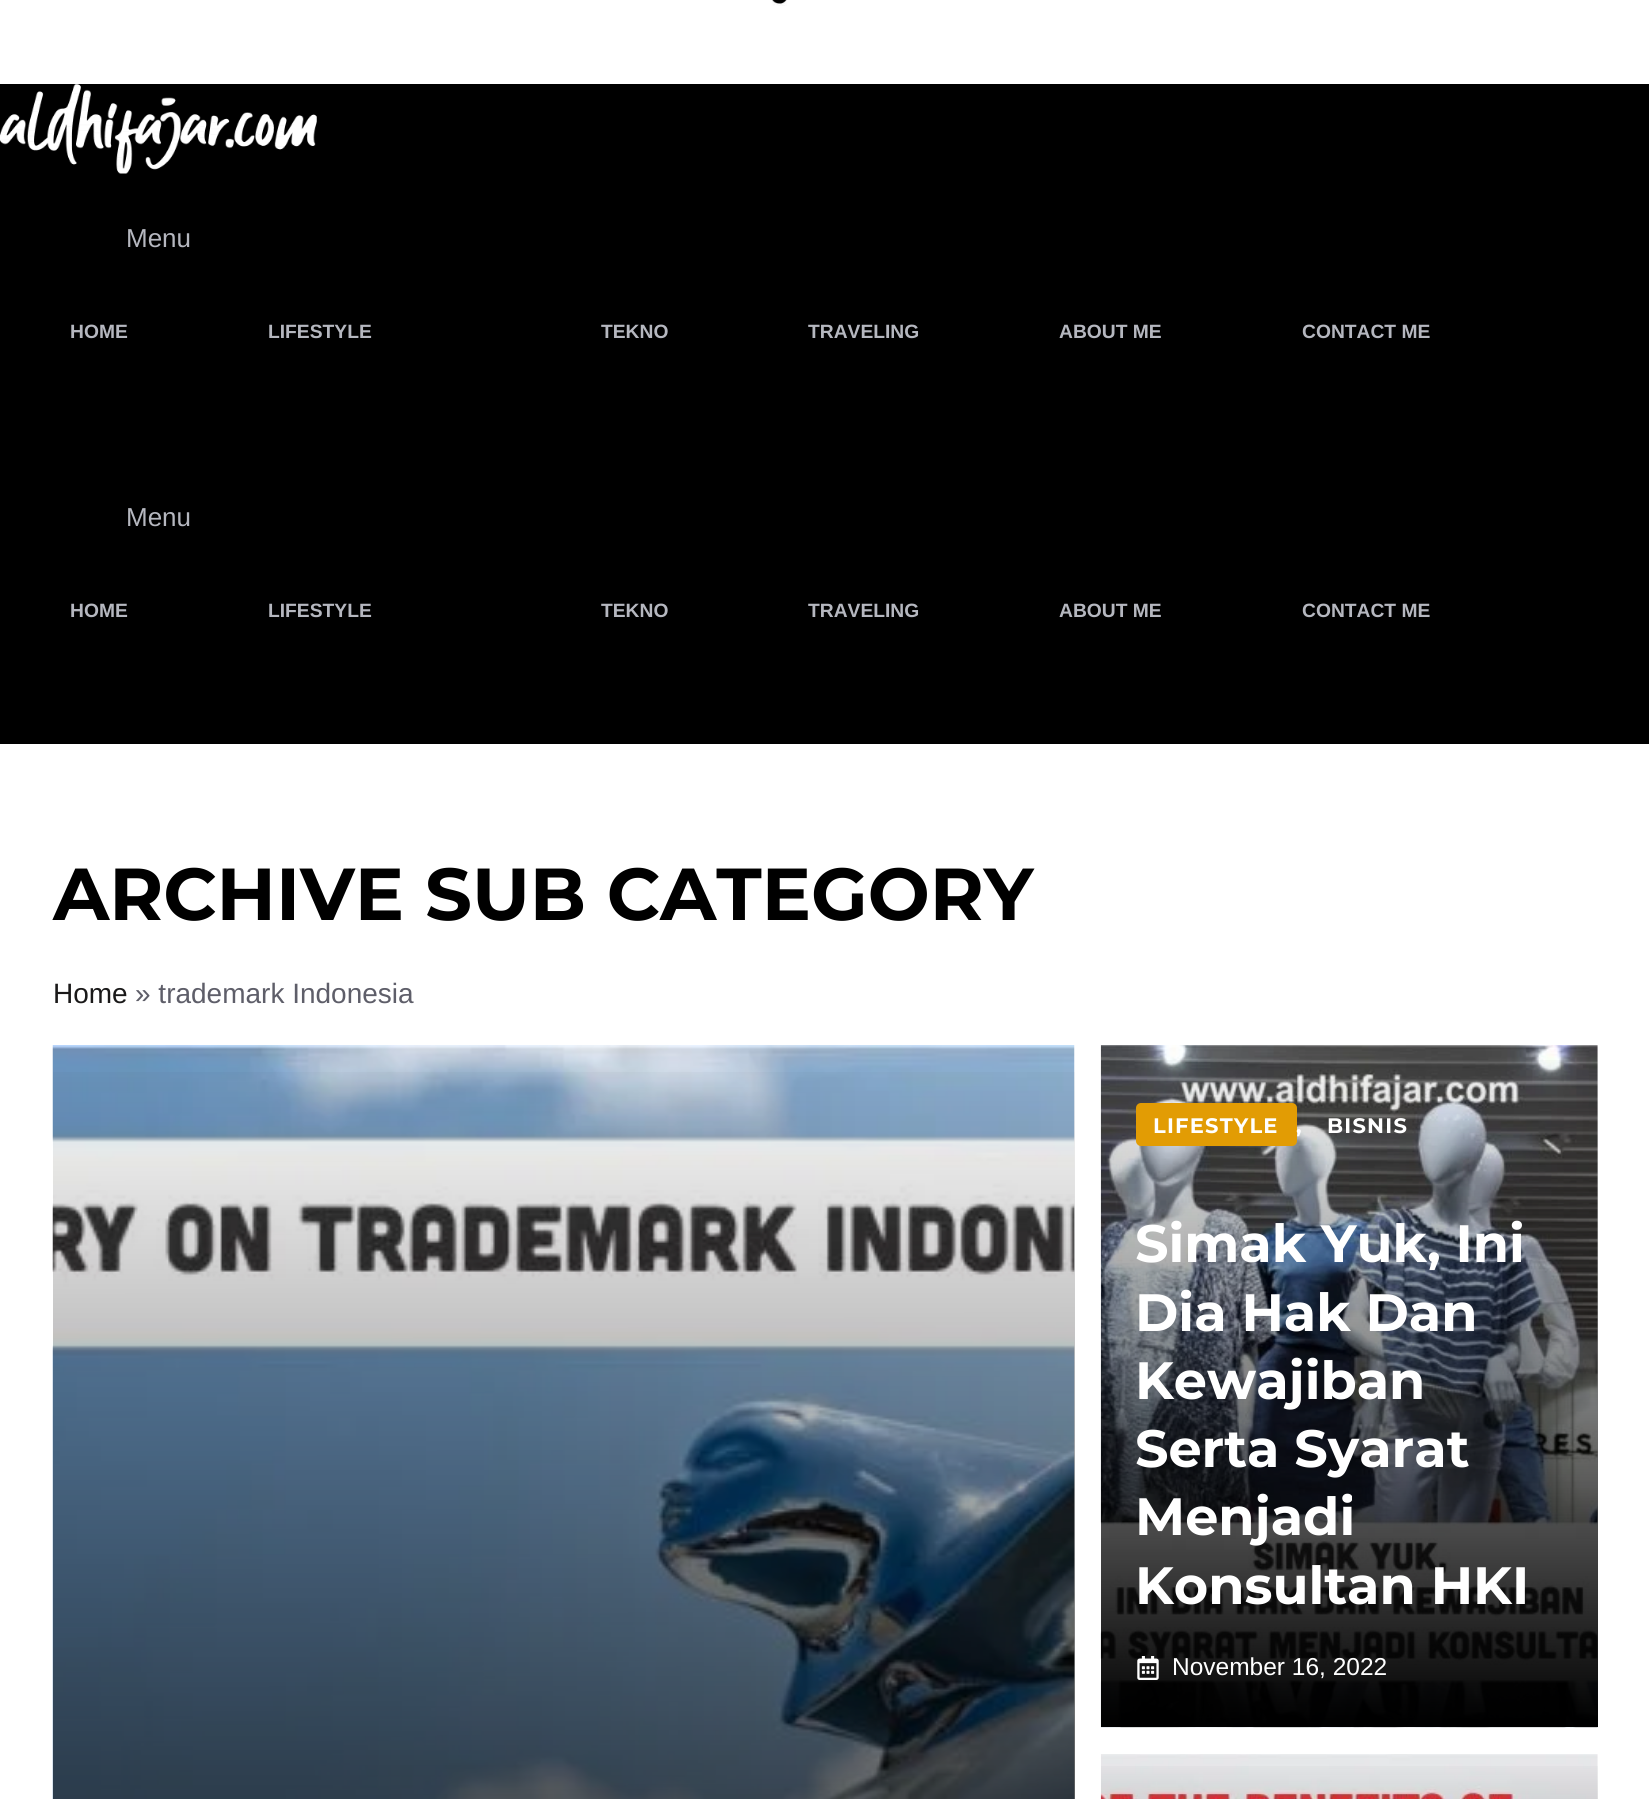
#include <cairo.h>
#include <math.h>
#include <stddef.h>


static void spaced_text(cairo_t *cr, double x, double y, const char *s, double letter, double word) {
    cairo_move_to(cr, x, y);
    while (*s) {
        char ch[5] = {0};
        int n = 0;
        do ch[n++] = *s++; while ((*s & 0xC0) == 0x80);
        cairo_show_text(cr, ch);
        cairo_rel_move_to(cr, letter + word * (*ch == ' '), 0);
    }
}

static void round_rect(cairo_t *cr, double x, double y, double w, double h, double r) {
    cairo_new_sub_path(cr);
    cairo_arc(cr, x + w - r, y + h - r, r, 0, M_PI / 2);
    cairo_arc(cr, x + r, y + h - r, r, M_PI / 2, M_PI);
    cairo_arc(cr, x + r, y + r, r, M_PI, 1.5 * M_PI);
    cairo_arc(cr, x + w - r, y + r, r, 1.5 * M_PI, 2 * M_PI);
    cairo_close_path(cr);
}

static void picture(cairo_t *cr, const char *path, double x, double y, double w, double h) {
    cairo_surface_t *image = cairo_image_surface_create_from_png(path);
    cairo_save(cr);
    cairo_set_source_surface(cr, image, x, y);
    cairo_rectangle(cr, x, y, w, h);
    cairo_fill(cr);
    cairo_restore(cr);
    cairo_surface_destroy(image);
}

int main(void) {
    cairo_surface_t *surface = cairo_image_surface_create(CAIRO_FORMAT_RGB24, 1649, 1799);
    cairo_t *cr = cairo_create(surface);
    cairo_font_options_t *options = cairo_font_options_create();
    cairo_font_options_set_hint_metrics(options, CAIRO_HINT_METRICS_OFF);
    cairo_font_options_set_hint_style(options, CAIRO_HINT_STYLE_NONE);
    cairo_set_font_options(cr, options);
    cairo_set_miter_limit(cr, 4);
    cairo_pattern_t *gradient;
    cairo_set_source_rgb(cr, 1, 1, 1);
    cairo_paint(cr);
    picture(cr, "img1.png", 772, 0, 15, 6);
    cairo_set_source_rgb(cr, 0, 0, 0);
    cairo_rectangle(cr, 0, 84, 1649, 660);
    cairo_fill(cr);
    picture(cr, "img2.png", 0, 84, 317, 90);
    cairo_select_font_face(cr, "Liberation Sans", CAIRO_FONT_SLANT_NORMAL, CAIRO_FONT_WEIGHT_NORMAL);
    cairo_set_font_size(cr, 26);
    cairo_set_source_rgb(cr, 0.71, 0.718, 0.749);
    cairo_move_to(cr, 126, 247);
    cairo_show_text(cr, "Menu");
    cairo_select_font_face(cr, "Liberation Sans", CAIRO_FONT_SLANT_NORMAL, CAIRO_FONT_WEIGHT_BOLD);
    cairo_set_font_size(cr, 19.25);
    cairo_move_to(cr, 70, 338);
    cairo_show_text(cr, "HOME");
    cairo_move_to(cr, 268, 338);
    cairo_show_text(cr, "LIFESTYLE");
    cairo_move_to(cr, 601, 338);
    cairo_show_text(cr, "TEKNO");
    cairo_move_to(cr, 808, 338);
    cairo_show_text(cr, "TRAVELING");
    cairo_move_to(cr, 1059, 338);
    cairo_show_text(cr, "ABOUT ME");
    cairo_move_to(cr, 1302, 338);
    cairo_show_text(cr, "CONTACT ME");
    cairo_select_font_face(cr, "Liberation Sans", CAIRO_FONT_SLANT_NORMAL, CAIRO_FONT_WEIGHT_NORMAL);
    cairo_set_font_size(cr, 26);
    cairo_move_to(cr, 126, 526);
    cairo_show_text(cr, "Menu");
    cairo_select_font_face(cr, "Liberation Sans", CAIRO_FONT_SLANT_NORMAL, CAIRO_FONT_WEIGHT_BOLD);
    cairo_set_font_size(cr, 19.25);
    cairo_move_to(cr, 70, 617);
    cairo_show_text(cr, "HOME");
    cairo_move_to(cr, 268, 617);
    cairo_show_text(cr, "LIFESTYLE");
    cairo_move_to(cr, 601, 617);
    cairo_show_text(cr, "TEKNO");
    cairo_move_to(cr, 808, 617);
    cairo_show_text(cr, "TRAVELING");
    cairo_move_to(cr, 1059, 617);
    cairo_show_text(cr, "ABOUT ME");
    cairo_move_to(cr, 1302, 617);
    cairo_show_text(cr, "CONTACT ME");
    cairo_select_font_face(cr, "Montserrat", CAIRO_FONT_SLANT_NORMAL, CAIRO_FONT_WEIGHT_BOLD);
    cairo_set_font_size(cr, 73.5);
    cairo_set_source_rgb(cr, 0, 0, 0);
    cairo_move_to(cr, 53, 920);
    cairo_show_text(cr, "ARCHIVE SUB CATEGORY");
    cairo_select_font_face(cr, "Liberation Sans", CAIRO_FONT_SLANT_NORMAL, CAIRO_FONT_WEIGHT_NORMAL);
    cairo_set_font_size(cr, 28);
    cairo_set_source_rgb(cr, 0.102, 0.098, 0.098);
    cairo_move_to(cr, 53, 1003);
    cairo_show_text(cr, "Home");
    cairo_set_source_rgb(cr, 0.369, 0.369, 0.412);
    cairo_move_to(cr, 135, 1003);
    cairo_show_text(cr, "» trademark Indonesia");
    picture(cr, "img3.png", 52, 1045, 1023, 754);
    gradient = cairo_pattern_create_linear(563, 1045, 564, 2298);
    cairo_pattern_add_color_stop_rgba(gradient, 0, 0, 0, 0, 0);
    cairo_pattern_add_color_stop_rgba(gradient, 1, 0, 0, 0, 1);
    cairo_set_source(cr, gradient);
    cairo_pattern_destroy(gradient);
    cairo_rectangle(cr, 53, 1072, 1022, 727);
    cairo_fill(cr);
    picture(cr, "img4.png", 1100, 1045, 498, 683);
    gradient = cairo_pattern_create_linear(1349, 1045, 1349, 1727);
    cairo_pattern_add_color_stop_rgba(gradient, 0, 0, 0, 0, 0);
    cairo_pattern_add_color_stop_rgba(gradient, 1, 0, 0, 0, 1);
    cairo_set_source(cr, gradient);
    cairo_pattern_destroy(gradient);
    cairo_rectangle(cr, 1101, 1060, 497, 667);
    cairo_fill(cr);
    cairo_set_source_rgb(cr, 0.886, 0.612, 0.016);
    round_rect(cr, 1136, 1103, 161, 43, 5);
    cairo_fill(cr);
    cairo_select_font_face(cr, "Montserrat", CAIRO_FONT_SLANT_NORMAL, CAIRO_FONT_WEIGHT_BOLD);
    cairo_set_font_size(cr, 21);
    cairo_set_source_rgb(cr, 1, 1, 1);
    spaced_text(cr, 1153, 1133, "LIFESTYLE", 1.25, 0);
    spaced_text(cr, 1296, 1133, ",", 1.25, 0);
    spaced_text(cr, 1327, 1133, "BISNIS", 1.25, 0);
    cairo_set_font_size(cr, 52.5);
    cairo_move_to(cr, 1135, 1262);
    cairo_show_text(cr, "Simak Yuk, Ini");
    cairo_move_to(cr, 1135, 1331);
    cairo_show_text(cr, "Dia Hak Dan");
    cairo_move_to(cr, 1135, 1399);
    cairo_show_text(cr, "Kewajiban");
    cairo_move_to(cr, 1135, 1467);
    cairo_show_text(cr, "Serta Syarat");
    cairo_move_to(cr, 1135, 1535);
    cairo_show_text(cr, "Menjadi");
    cairo_move_to(cr, 1135, 1604);
    cairo_show_text(cr, "Konsultan HKI");
    picture(cr, "img5.png", 1137, 1656, 22, 24);
    cairo_select_font_face(cr, "Liberation Sans", CAIRO_FONT_SLANT_NORMAL, CAIRO_FONT_WEIGHT_NORMAL);
    cairo_set_font_size(cr, 24.5);
    cairo_move_to(cr, 1172, 1675);
    cairo_show_text(cr, "November 16, 2022");
    picture(cr, "img6.png", 1100, 1754, 498, 45);
    gradient = cairo_pattern_create_linear(1349, 1754, 1349, 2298);
    cairo_pattern_add_color_stop_rgba(gradient, 0, 0, 0, 0, 0);
    cairo_pattern_add_color_stop_rgba(gradient, 1, 0, 0, 0, 1);
    cairo_set_source(cr, gradient);
    cairo_pattern_destroy(gradient);
    cairo_rectangle(cr, 1101, 1766, 497, 33);
    cairo_fill(cr);
    cairo_surface_write_to_png(surface, "page.png");
    cairo_font_options_destroy(options);
    cairo_destroy(cr);
    cairo_surface_destroy(surface);
    return 0;
}
